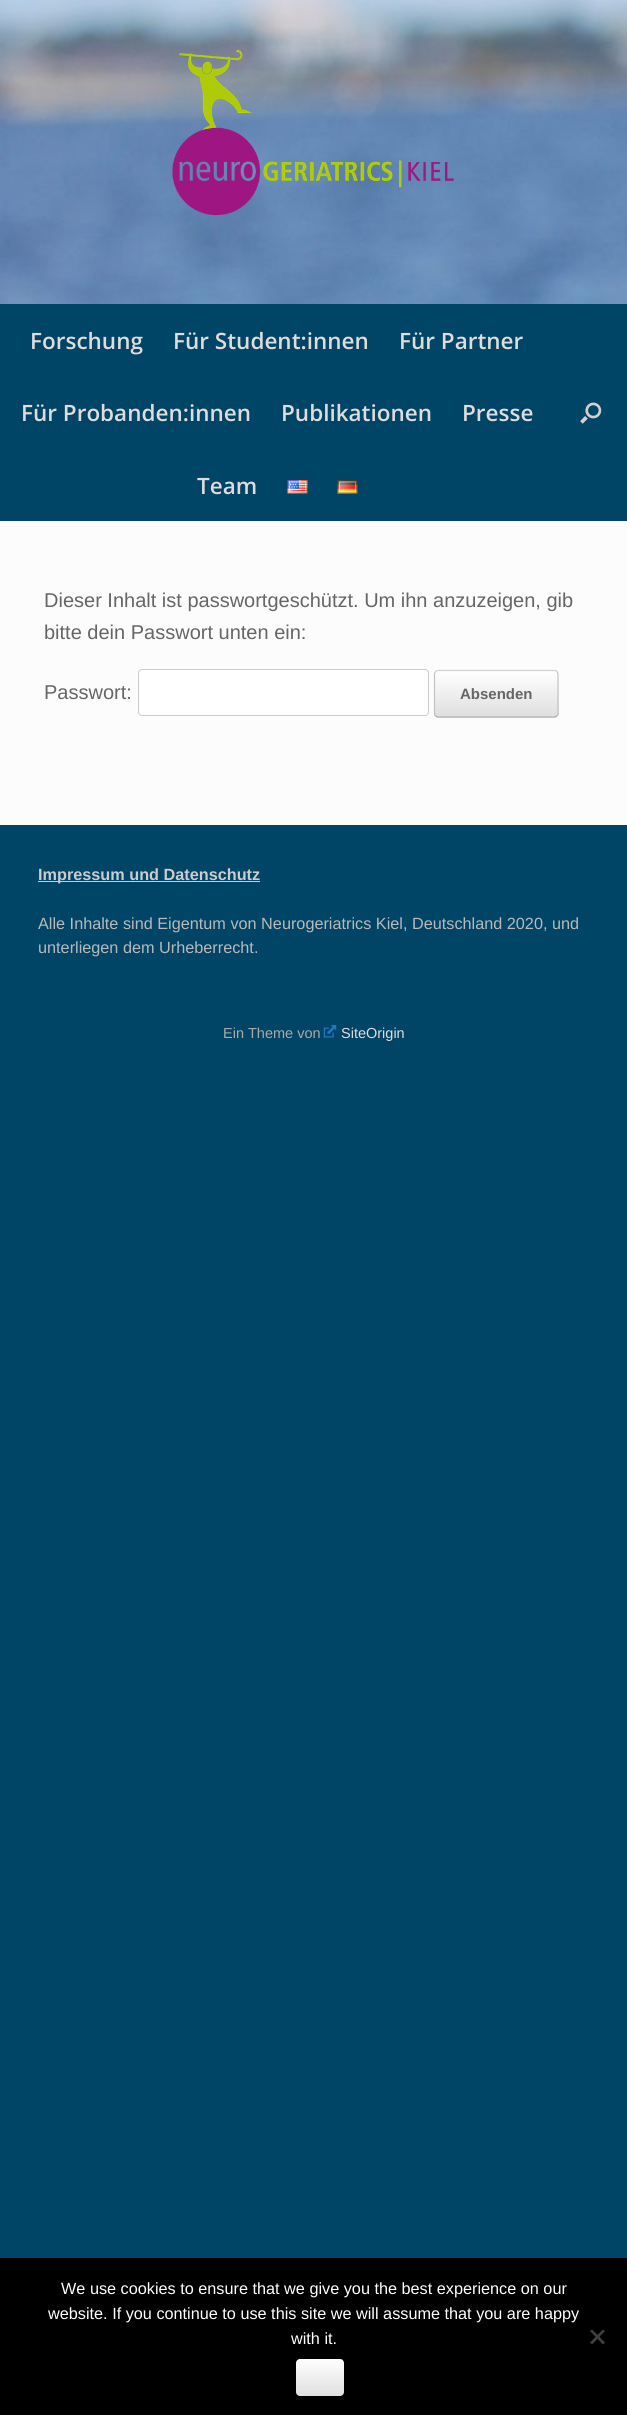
#include <cairo.h>
#include <math.h>
#include <stddef.h>


static void round_rect(cairo_t *cr, double x, double y, double w, double h, double r) {
    cairo_new_sub_path(cr);
    cairo_arc(cr, x + w - r, y + h - r, r, 0, M_PI / 2);
    cairo_arc(cr, x + r, y + h - r, r, M_PI / 2, M_PI);
    cairo_arc(cr, x + r, y + r, r, M_PI, 1.5 * M_PI);
    cairo_arc(cr, x + w - r, y + r, r, 1.5 * M_PI, 2 * M_PI);
    cairo_close_path(cr);
}

static void picture(cairo_t *cr, const char *path, double x, double y, double w, double h) {
    cairo_surface_t *image = cairo_image_surface_create_from_png(path);
    cairo_save(cr);
    cairo_set_source_surface(cr, image, x, y);
    cairo_rectangle(cr, x, y, w, h);
    cairo_fill(cr);
    cairo_restore(cr);
    cairo_surface_destroy(image);
}

int main(void) {
    cairo_surface_t *surface = cairo_image_surface_create(CAIRO_FORMAT_RGB24, 627, 2415);
    cairo_t *cr = cairo_create(surface);
    cairo_font_options_t *options = cairo_font_options_create();
    cairo_font_options_set_hint_metrics(options, CAIRO_HINT_METRICS_OFF);
    cairo_font_options_set_hint_style(options, CAIRO_HINT_STYLE_NONE);
    cairo_set_font_options(cr, options);
    cairo_set_miter_limit(cr, 4);
    cairo_pattern_t *gradient;
    cairo_set_source_rgb(cr, 0, 0.267, 0.4);
    cairo_paint(cr);
    picture(cr, "img1.png", 0, 0, 627, 304);
    picture(cr, "img2.png", 172, 50, 282, 166);
    cairo_select_font_face(cr, "Open Sans SemiBold", CAIRO_FONT_SLANT_NORMAL, CAIRO_FONT_WEIGHT_NORMAL);
    cairo_set_font_size(cr, 22.5);
    cairo_set_source_rgb(cr, 0.867, 0.867, 0.867);
    cairo_move_to(cr, 30, 349);
    cairo_show_text(cr, "Forschung");
    cairo_move_to(cr, 173, 349);
    cairo_show_text(cr, "Für Student:innen");
    cairo_move_to(cr, 399, 349);
    cairo_show_text(cr, "Für Partner");
    cairo_move_to(cr, 21, 421);
    cairo_show_text(cr, "Für Probanden:innen");
    cairo_move_to(cr, 281, 421);
    cairo_show_text(cr, "Publikationen");
    cairo_move_to(cr, 462, 421);
    cairo_show_text(cr, "Presse");
    cairo_move_to(cr, 197, 494);
    cairo_show_text(cr, "Team");
    picture(cr, "img3.png", 287, 480, 21, 14);
    picture(cr, "img4.png", 337, 480, 21, 14);
    picture(cr, "img5.png", 580, 402, 22, 22);
    cairo_set_source_rgb(cr, 0.988, 0.988, 0.988);
    cairo_rectangle(cr, 0, 521, 627, 304);
    cairo_fill(cr);
    cairo_select_font_face(cr, "Liberation Sans", CAIRO_FONT_SLANT_NORMAL, CAIRO_FONT_WEIGHT_NORMAL);
    cairo_set_font_size(cr, 20);
    cairo_set_source_rgb(cr, 0.4, 0.4, 0.4);
    cairo_move_to(cr, 44, 607);
    cairo_show_text(cr, "Dieser Inhalt ist passwortgeschützt. Um ihn anzuzeigen, gib");
    cairo_move_to(cr, 44, 639);
    cairo_show_text(cr, "bitte dein Passwort unten ein:");
    cairo_move_to(cr, 44, 699);
    cairo_show_text(cr, "Passwort:");
    cairo_set_source_rgb(cr, 1, 1, 1);
    round_rect(cr, 138.5, 669.5, 290, 46, 3.5);
    cairo_fill_preserve(cr);
    cairo_set_source_rgb(cr, 0.8, 0.8, 0.8);
    cairo_set_line_width(cr, 1);
    cairo_stroke(cr);
    cairo_save(cr);
    round_rect(cr, 434, 670, 125, 48, 4);
    cairo_clip(cr);
    gradient = cairo_pattern_create_linear(435, 671, 435, 626);
    cairo_pattern_add_color_stop_rgba(gradient, 0, 0.875, 0.875, 0.875, 1);
    cairo_pattern_add_color_stop_rgba(gradient, 1, 1, 1, 1, 1);
    cairo_set_source(cr, gradient);
    cairo_pattern_destroy(gradient);
    cairo_rectangle(cr, 434, 670, 125, 1);
    cairo_fill(cr);
    gradient = cairo_pattern_create_linear(435, 716, 435, 671);
    cairo_pattern_add_color_stop_rgba(gradient, 0, 0.875, 0.875, 0.875, 1);
    cairo_pattern_add_color_stop_rgba(gradient, 1, 1, 1, 1, 1);
    cairo_set_source(cr, gradient);
    cairo_pattern_destroy(gradient);
    cairo_rectangle(cr, 434, 671, 125, 45);
    cairo_fill(cr);
    gradient = cairo_pattern_create_linear(435, 761, 435, 716);
    cairo_pattern_add_color_stop_rgba(gradient, 0, 0.875, 0.875, 0.875, 1);
    cairo_pattern_add_color_stop_rgba(gradient, 1, 1, 1, 1, 1);
    cairo_set_source(cr, gradient);
    cairo_pattern_destroy(gradient);
    cairo_rectangle(cr, 434, 716, 125, 2);
    cairo_fill(cr);
    cairo_restore(cr);
    cairo_new_path(cr);
    cairo_move_to(cr, 435.5, 671.5);
    cairo_line_to(cr, 437.5, 670.5);
    cairo_line_to(cr, 555, 670.5);
    cairo_line_to(cr, 557, 671.5);
    cairo_set_source_rgb(cr, 0.824, 0.824, 0.824);
    cairo_set_line_width(cr, 1.2);
    cairo_stroke(cr);
    cairo_new_path(cr);
    cairo_move_to(cr, 557, 671.5);
    cairo_line_to(cr, 558, 674);
    cairo_line_to(cr, 558, 714);
    cairo_line_to(cr, 557, 716);
    cairo_set_source_rgb(cr, 0.765, 0.765, 0.765);
    cairo_stroke(cr);
    cairo_new_path(cr);
    cairo_move_to(cr, 557, 716);
    cairo_line_to(cr, 555, 717);
    cairo_line_to(cr, 437.5, 717);
    cairo_line_to(cr, 435.5, 716);
    cairo_set_source_rgb(cr, 0.624, 0.624, 0.624);
    cairo_stroke(cr);
    cairo_new_path(cr);
    cairo_move_to(cr, 435.5, 716);
    cairo_line_to(cr, 434.5, 714);
    cairo_line_to(cr, 434.5, 674);
    cairo_line_to(cr, 435.5, 671.5);
    cairo_set_source_rgb(cr, 0.765, 0.765, 0.765);
    cairo_stroke(cr);
    cairo_select_font_face(cr, "Liberation Sans", CAIRO_FONT_SLANT_NORMAL, CAIRO_FONT_WEIGHT_BOLD);
    cairo_set_font_size(cr, 15);
    cairo_set_source_rgb(cr, 0.4, 0.4, 0.4);
    cairo_move_to(cr, 460, 699);
    cairo_show_text(cr, "Absenden");
    cairo_set_source_rgb(cr, 0.8, 0.8, 0.8);
    cairo_rectangle(cr, 38, 881, 222, 1);
    cairo_fill(cr);
    cairo_set_font_size(cr, 16.25);
    cairo_move_to(cr, 38, 880);
    cairo_show_text(cr, "Impressum und Datenschutz");
    cairo_select_font_face(cr, "Liberation Sans", CAIRO_FONT_SLANT_NORMAL, CAIRO_FONT_WEIGHT_NORMAL);
    cairo_set_source_rgb(cr, 0.725, 0.725, 0.725);
    cairo_move_to(cr, 38, 929);
    cairo_show_text(cr, "Alle Inhalte sind Eigentum von Neurogeriatrics Kiel, Deutschland 2020, und");
    cairo_move_to(cr, 38, 953);
    cairo_show_text(cr, "unterliegen dem Urheberrecht.");
    cairo_set_font_size(cr, 14.5);
    cairo_set_source_rgb(cr, 0.667, 0.667, 0.667);
    cairo_move_to(cr, 223, 1038);
    cairo_show_text(cr, "Ein Theme von");
    picture(cr, "img6.png", 323, 1025, 14, 13);
    cairo_set_source_rgb(cr, 0.867, 0.867, 0.867);
    cairo_move_to(cr, 341, 1038);
    cairo_show_text(cr, "SiteOrigin");
    cairo_set_source_rgb(cr, 0, 0, 0);
    cairo_rectangle(cr, 0, 2258, 627, 157);
    cairo_fill(cr);
    cairo_set_font_size(cr, 16.25);
    cairo_set_source_rgb(cr, 1, 1, 1);
    cairo_move_to(cr, 61, 2294);
    cairo_show_text(cr, "We use cookies to ensure that we give you the best experience on our");
    cairo_move_to(cr, 48, 2319);
    cairo_show_text(cr, "website. If you continue to use this site we will assume that you are happy");
    cairo_move_to(cr, 291, 2344);
    cairo_show_text(cr, "with it.");
    cairo_set_source_rgb(cr, 0.251, 0.251, 0.251);
    cairo_new_path(cr);
    cairo_move_to(cr, 603, 2329.5);
    cairo_line_to(cr, 605, 2331);
    cairo_line_to(cr, 592, 2344.5);
    cairo_line_to(cr, 590, 2342.5);
    cairo_close_path(cr);
    cairo_fill(cr);
    cairo_new_path(cr);
    cairo_move_to(cr, 590, 2331);
    cairo_line_to(cr, 592, 2329.5);
    cairo_line_to(cr, 605, 2342.5);
    cairo_line_to(cr, 603, 2344.5);
    cairo_close_path(cr);
    cairo_fill(cr);
    gradient = cairo_pattern_create_linear(296, 2396, 296, 2359);
    cairo_pattern_add_color_stop_rgba(gradient, 0, 0.875, 0.875, 0.875, 1);
    cairo_pattern_add_color_stop_rgba(gradient, 1, 1, 1, 1, 1);
    cairo_set_source(cr, gradient);
    cairo_pattern_destroy(gradient);
    round_rect(cr, 296, 2359, 48, 37, 4);
    cairo_fill(cr);
    cairo_surface_write_to_png(surface, "page.png");
    cairo_font_options_destroy(options);
    cairo_destroy(cr);
    cairo_surface_destroy(surface);
    return 0;
}
